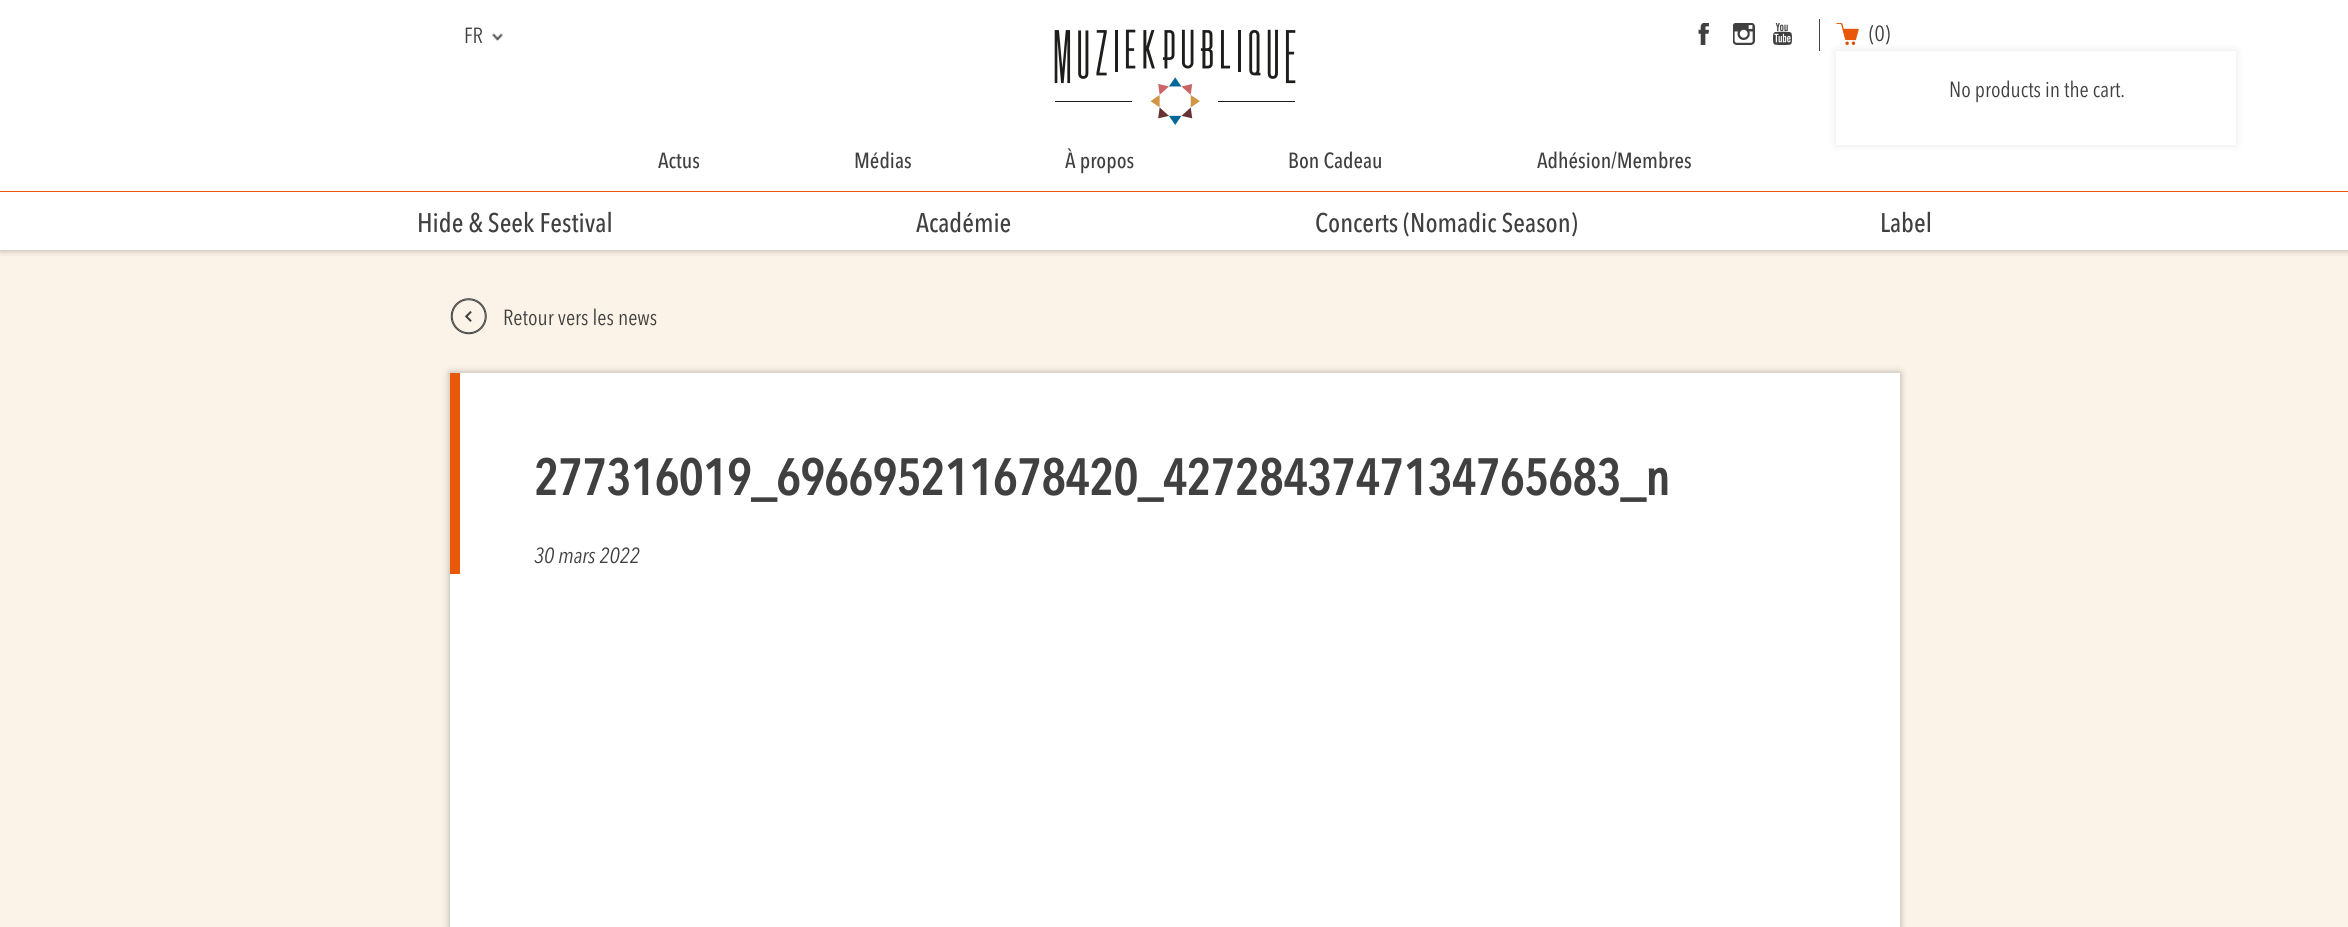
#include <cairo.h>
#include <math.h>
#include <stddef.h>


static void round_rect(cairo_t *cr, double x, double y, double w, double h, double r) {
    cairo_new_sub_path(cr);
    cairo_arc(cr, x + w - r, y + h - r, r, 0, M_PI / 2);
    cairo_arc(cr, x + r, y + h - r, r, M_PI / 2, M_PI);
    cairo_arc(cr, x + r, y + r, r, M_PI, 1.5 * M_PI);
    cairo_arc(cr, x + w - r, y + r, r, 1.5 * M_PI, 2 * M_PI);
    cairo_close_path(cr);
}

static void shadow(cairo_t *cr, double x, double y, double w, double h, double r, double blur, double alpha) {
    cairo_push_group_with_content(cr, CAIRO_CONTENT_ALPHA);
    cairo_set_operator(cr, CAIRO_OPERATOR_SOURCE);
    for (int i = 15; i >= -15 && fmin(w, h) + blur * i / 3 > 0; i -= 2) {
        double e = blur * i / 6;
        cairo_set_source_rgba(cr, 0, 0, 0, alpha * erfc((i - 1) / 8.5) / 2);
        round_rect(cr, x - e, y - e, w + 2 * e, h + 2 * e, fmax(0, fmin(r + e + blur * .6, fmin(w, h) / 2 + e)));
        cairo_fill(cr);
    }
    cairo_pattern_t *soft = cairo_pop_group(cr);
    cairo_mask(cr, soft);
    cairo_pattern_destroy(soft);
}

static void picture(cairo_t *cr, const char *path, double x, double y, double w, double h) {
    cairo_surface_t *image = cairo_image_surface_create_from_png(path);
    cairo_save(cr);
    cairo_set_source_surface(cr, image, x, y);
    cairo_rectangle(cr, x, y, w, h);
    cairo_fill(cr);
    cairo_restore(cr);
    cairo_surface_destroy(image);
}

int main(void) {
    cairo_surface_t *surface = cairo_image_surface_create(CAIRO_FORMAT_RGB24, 2348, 927);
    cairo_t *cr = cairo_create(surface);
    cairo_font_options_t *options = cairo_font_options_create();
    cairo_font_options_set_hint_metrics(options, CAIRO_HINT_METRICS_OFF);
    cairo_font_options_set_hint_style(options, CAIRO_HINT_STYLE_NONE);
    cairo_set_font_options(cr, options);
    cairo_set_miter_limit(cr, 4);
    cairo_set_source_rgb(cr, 1, 1, 1);
    cairo_paint(cr);
    cairo_set_source_rgb(cr, 0.988, 0.953, 0.91);
    cairo_rectangle(cr, 0, 250, 2348, 677);
    cairo_fill(cr);
    cairo_save(cr);
    cairo_rectangle(cr, 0, 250, 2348, 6);
    cairo_clip(cr);
    cairo_set_source_rgb(cr, 0, 0, 0);
    shadow(cr, 0, 0, 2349, 250, 0, 4, 0.3);
    cairo_restore(cr);
    picture(cr, "img1.png", 492, 33, 11, 9);
    cairo_select_font_face(cr, "Avenir Next", CAIRO_FONT_SLANT_NORMAL, CAIRO_FONT_WEIGHT_NORMAL);
    cairo_set_font_size(cr, 21.75);
    cairo_set_source_rgb(cr, 0.251, 0.251, 0.251);
    cairo_move_to(cr, 464, 43);
    cairo_show_text(cr, "FR");
    picture(cr, "img2.png", 1054, 29, 242, 96);
    cairo_rectangle(cr, 1819, 19, 1, 32);
    cairo_fill(cr);
    picture(cr, "img3.png", 1698, 23, 11, 22);
    picture(cr, "img4.png", 1733, 23, 22, 22);
    picture(cr, "img5.png", 1773, 23, 19, 22);
    picture(cr, "img6.png", 1836, 23, 23, 22);
    cairo_move_to(cr, 1869, 41);
    cairo_show_text(cr, "(0)");
    cairo_save(cr);
    cairo_set_fill_rule(cr, CAIRO_FILL_RULE_EVEN_ODD);
    cairo_new_path(cr);
    cairo_move_to(cr, 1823, 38);
    cairo_line_to(cr, 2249, 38);
    cairo_line_to(cr, 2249, 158);
    cairo_line_to(cr, 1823, 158);
    cairo_close_path(cr);
    cairo_move_to(cr, 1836, 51);
    cairo_line_to(cr, 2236, 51);
    cairo_line_to(cr, 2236, 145);
    cairo_line_to(cr, 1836, 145);
    cairo_close_path(cr);
    cairo_clip(cr);
    cairo_set_source_rgb(cr, 0, 0, 0);
    shadow(cr, 1836, 51, 400, 94, 0, 4, 0.1);
    cairo_restore(cr);
    cairo_move_to(cr, 1949, 97);
    cairo_show_text(cr, "No products in the cart.");
    cairo_select_font_face(cr, "Avenir Next Medium", CAIRO_FONT_SLANT_NORMAL, CAIRO_FONT_WEIGHT_NORMAL);
    cairo_move_to(cr, 658, 168);
    cairo_show_text(cr, "Actus");
    cairo_move_to(cr, 854, 168);
    cairo_show_text(cr, "Médias");
    cairo_move_to(cr, 1065, 168);
    cairo_show_text(cr, "À propos");
    cairo_move_to(cr, 1288, 168);
    cairo_show_text(cr, "Bon Cadeau");
    cairo_move_to(cr, 1537, 168);
    cairo_show_text(cr, "Adhésion/Membres");
    cairo_set_source_rgb(cr, 0.914, 0.345, 0.031);
    cairo_rectangle(cr, 0, 191, 2348, 1);
    cairo_fill(cr);
    cairo_set_font_size(cr, 26.75);
    cairo_set_source_rgb(cr, 0.251, 0.251, 0.251);
    cairo_move_to(cr, 417, 232);
    cairo_show_text(cr, "Hide & Seek Festival");
    cairo_move_to(cr, 916, 232);
    cairo_show_text(cr, "Académie");
    cairo_move_to(cr, 1315, 232);
    cairo_show_text(cr, "Concerts (Nomadic Season)");
    cairo_move_to(cr, 1880, 232);
    cairo_show_text(cr, "Label");
    picture(cr, "img7.png", 450, 298, 37, 37);
    cairo_select_font_face(cr, "Avenir Next", CAIRO_FONT_SLANT_NORMAL, CAIRO_FONT_WEIGHT_NORMAL);
    cairo_set_font_size(cr, 21.75);
    cairo_move_to(cr, 503, 325);
    cairo_show_text(cr, "Retour vers les news");
    cairo_set_source_rgb(cr, 0, 0, 0);
    shadow(cr, 450, 373, 1450, 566, 0, 4, 0.3);
    cairo_set_source_rgb(cr, 1, 1, 1);
    cairo_rectangle(cr, 450, 373, 1450, 554);
    cairo_fill(cr);
    cairo_set_source_rgb(cr, 0.914, 0.345, 0.031);
    cairo_rectangle(cr, 450, 373, 10, 201);
    cairo_fill(cr);
    cairo_select_font_face(cr, "Avenir Next", CAIRO_FONT_SLANT_NORMAL, CAIRO_FONT_WEIGHT_BOLD);
    cairo_set_font_size(cr, 50);
    cairo_set_source_rgb(cr, 0.251, 0.251, 0.251);
    cairo_move_to(cr, 534, 495);
    cairo_show_text(cr, "277316019_696695211678420_4272843747134765683_n");
    cairo_select_font_face(cr, "Avenir Next", CAIRO_FONT_SLANT_ITALIC, CAIRO_FONT_WEIGHT_NORMAL);
    cairo_set_font_size(cr, 21.75);
    cairo_move_to(cr, 534, 563);
    cairo_show_text(cr, "30 mars 2022");
    cairo_surface_write_to_png(surface, "page.png");
    cairo_font_options_destroy(options);
    cairo_destroy(cr);
    cairo_surface_destroy(surface);
    return 0;
}
